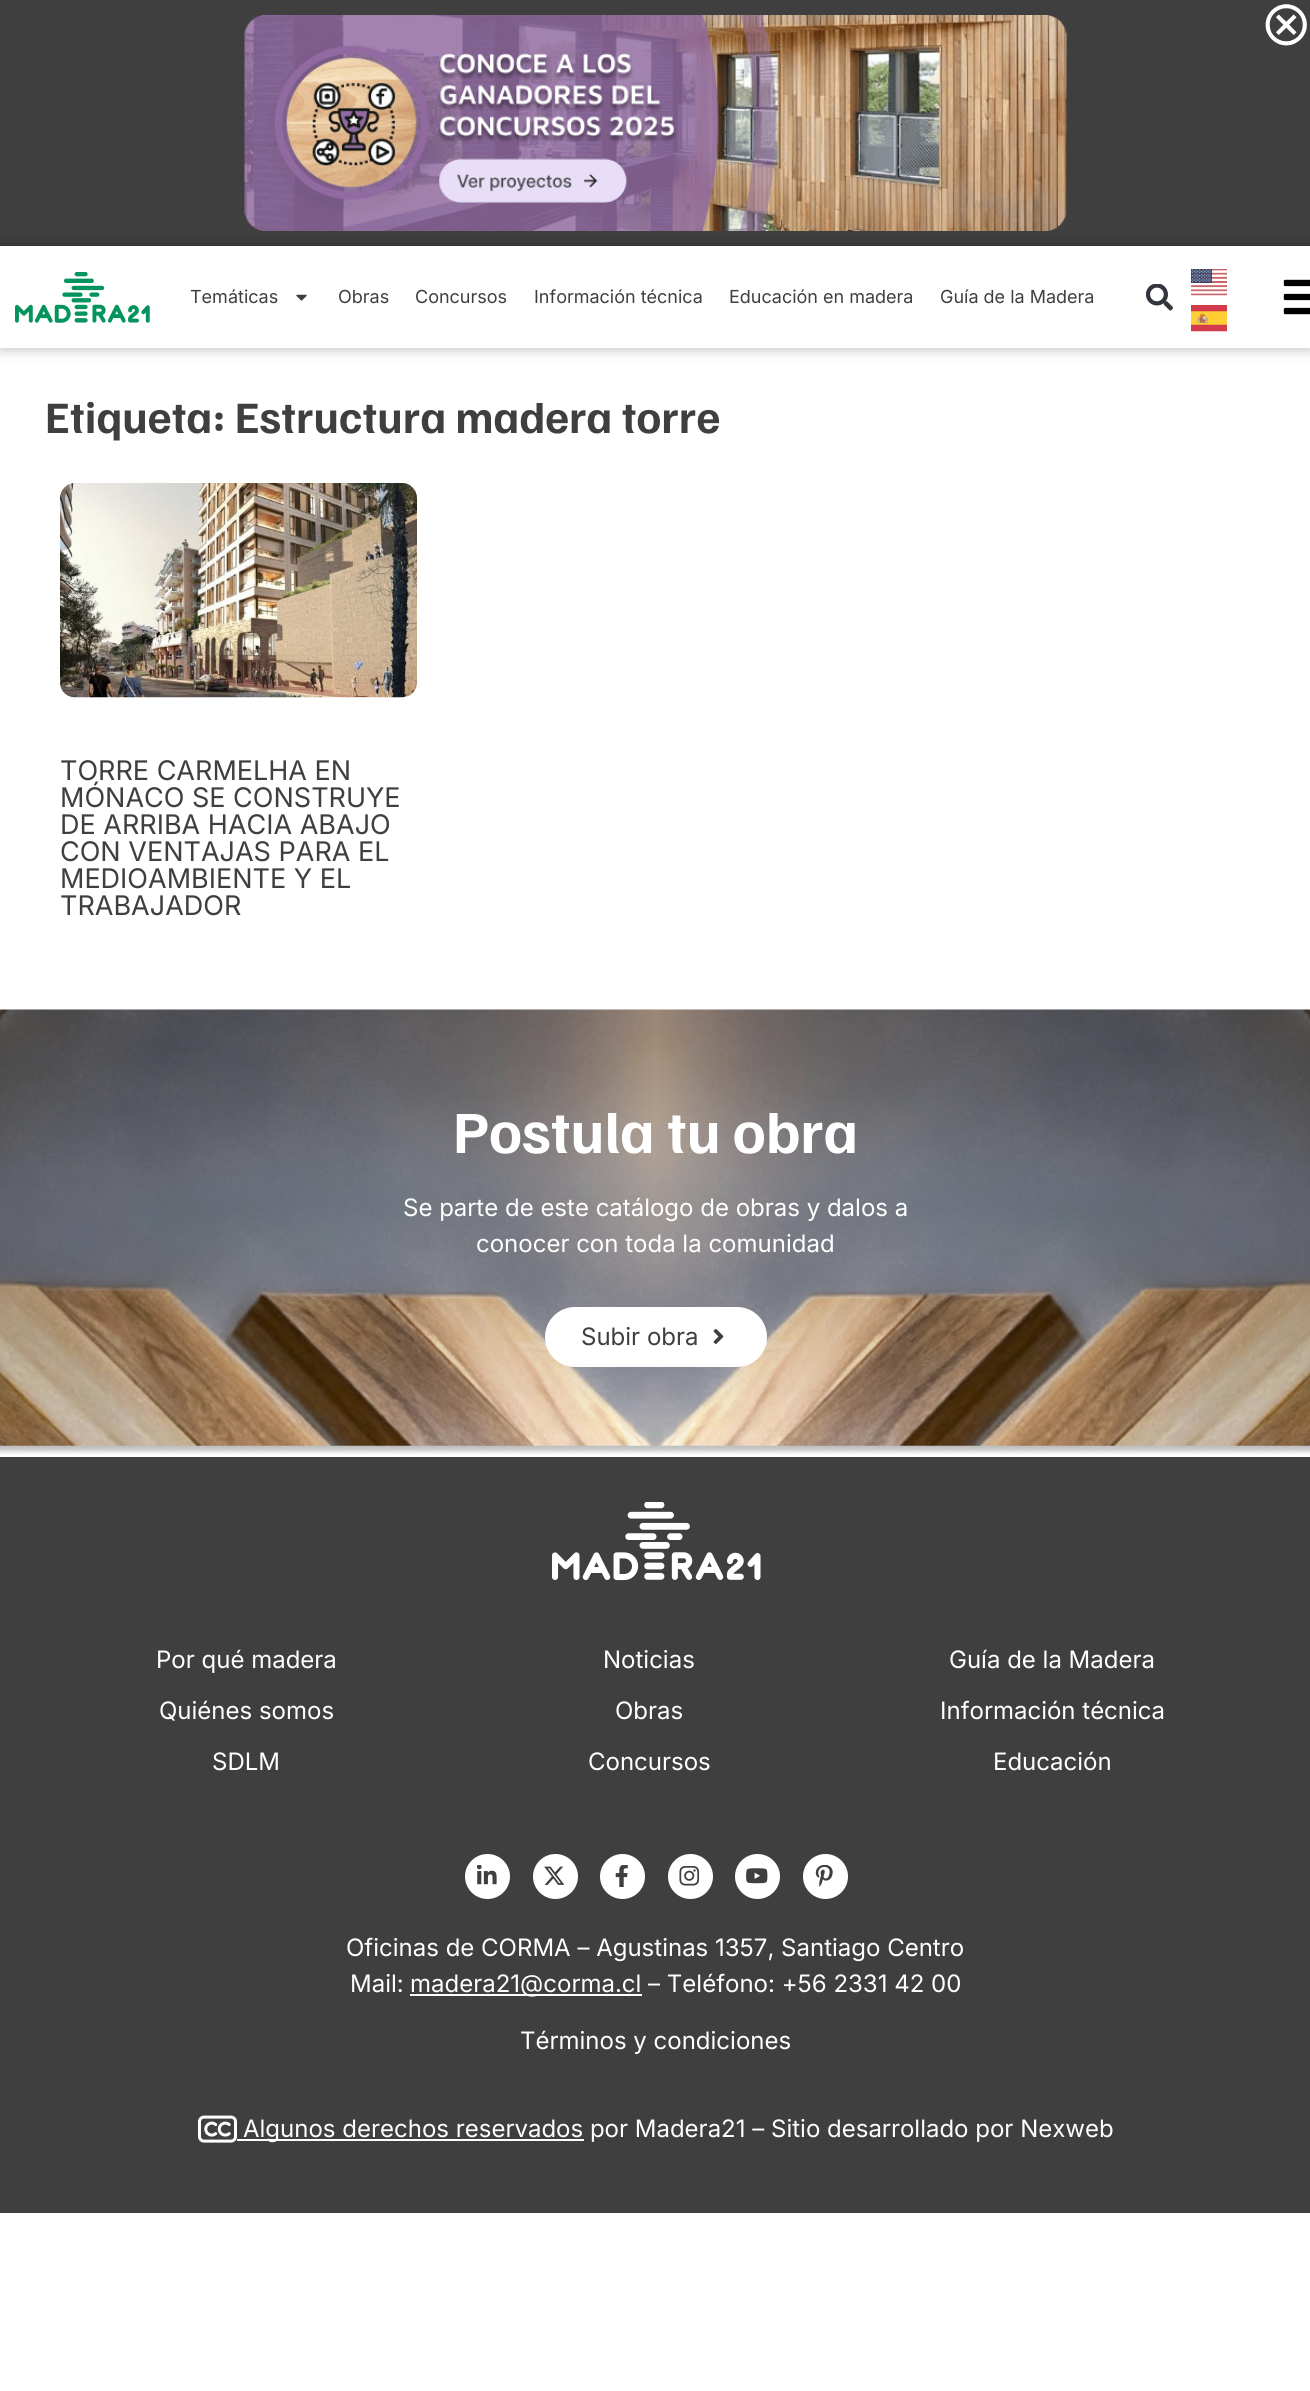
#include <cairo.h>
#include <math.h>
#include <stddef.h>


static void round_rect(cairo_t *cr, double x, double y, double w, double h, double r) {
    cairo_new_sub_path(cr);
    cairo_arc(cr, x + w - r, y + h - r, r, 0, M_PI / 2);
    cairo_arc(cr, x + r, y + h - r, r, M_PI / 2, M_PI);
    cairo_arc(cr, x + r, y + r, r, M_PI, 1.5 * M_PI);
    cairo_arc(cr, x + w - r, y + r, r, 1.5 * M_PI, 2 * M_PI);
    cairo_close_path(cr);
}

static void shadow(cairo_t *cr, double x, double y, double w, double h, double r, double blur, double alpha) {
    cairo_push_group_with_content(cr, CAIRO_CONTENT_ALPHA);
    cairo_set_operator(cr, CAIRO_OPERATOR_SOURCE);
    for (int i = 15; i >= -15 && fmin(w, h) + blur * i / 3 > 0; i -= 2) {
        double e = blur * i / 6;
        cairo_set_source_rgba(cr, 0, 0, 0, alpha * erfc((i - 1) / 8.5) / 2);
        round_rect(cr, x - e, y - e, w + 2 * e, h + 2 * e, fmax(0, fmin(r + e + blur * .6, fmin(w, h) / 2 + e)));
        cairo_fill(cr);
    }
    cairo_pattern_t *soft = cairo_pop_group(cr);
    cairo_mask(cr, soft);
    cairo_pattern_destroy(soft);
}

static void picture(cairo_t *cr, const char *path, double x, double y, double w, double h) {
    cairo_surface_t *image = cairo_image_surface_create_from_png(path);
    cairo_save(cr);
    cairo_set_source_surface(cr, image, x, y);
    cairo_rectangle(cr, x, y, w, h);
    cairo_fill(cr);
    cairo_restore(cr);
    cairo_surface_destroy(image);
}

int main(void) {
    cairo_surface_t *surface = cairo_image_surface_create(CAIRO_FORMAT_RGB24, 1310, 2391);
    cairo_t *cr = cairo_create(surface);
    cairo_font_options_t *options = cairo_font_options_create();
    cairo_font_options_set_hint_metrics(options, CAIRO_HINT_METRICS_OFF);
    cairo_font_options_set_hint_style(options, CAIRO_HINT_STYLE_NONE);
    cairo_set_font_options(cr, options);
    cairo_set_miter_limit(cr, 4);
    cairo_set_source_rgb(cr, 1, 1, 1);
    cairo_paint(cr);
    cairo_set_source_rgb(cr, 0.247, 0.247, 0.247);
    cairo_rectangle(cr, 0, 0, 1310, 246);
    cairo_fill(cr);
    picture(cr, "img1.png", 244, 15, 823, 216);
    picture(cr, "img2.png", 1265, 4, 42, 42);
    cairo_save(cr);
    cairo_set_fill_rule(cr, CAIRO_FILL_RULE_EVEN_ODD);
    cairo_new_path(cr);
    cairo_move_to(cr, 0, 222);
    cairo_line_to(cr, 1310, 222);
    cairo_line_to(cr, 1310, 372);
    cairo_line_to(cr, 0, 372);
    cairo_close_path(cr);
    cairo_move_to(cr, 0, 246);
    cairo_line_to(cr, 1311, 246);
    cairo_line_to(cr, 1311, 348);
    cairo_line_to(cr, 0, 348);
    cairo_close_path(cr);
    cairo_clip(cr);
    cairo_set_source_rgb(cr, 0, 0, 0);
    shadow(cr, 0, 246, 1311, 102, 0, 7.5, 0.29);
    cairo_restore(cr);
    picture(cr, "img3.png", 15, 272, 135, 51);
    cairo_select_font_face(cr, "Inter", CAIRO_FONT_SLANT_NORMAL, CAIRO_FONT_WEIGHT_NORMAL);
    cairo_set_font_size(cr, 18);
    cairo_move_to(cr, 190, 303);
    cairo_show_text(cr, "Temáticas");
    picture(cr, "img4.png", 296, 294, 11, 7);
    cairo_move_to(cr, 338, 303);
    cairo_show_text(cr, "Obras");
    cairo_move_to(cr, 415, 303);
    cairo_show_text(cr, "Concursos");
    cairo_move_to(cr, 534, 303);
    cairo_show_text(cr, "Información técnica");
    cairo_move_to(cr, 729, 303);
    cairo_show_text(cr, "Educación en madera");
    cairo_move_to(cr, 940, 303);
    cairo_show_text(cr, "Guía de la Madera");
    picture(cr, "img5.png", 1146, 284, 27, 27);
    picture(cr, "img6.png", 1191, 269, 36, 27);
    picture(cr, "img7.png", 1191, 305, 36, 27);
    picture(cr, "img8.png", 1283, 279, 27, 36);
    cairo_select_font_face(cr, "Familjen Grotesk", CAIRO_FONT_SLANT_NORMAL, CAIRO_FONT_WEIGHT_BOLD);
    cairo_set_font_size(cr, 45);
    cairo_move_to(cr, 45, 433);
    cairo_show_text(cr, "Etiqueta: Estructura madera torre");
    picture(cr, "img9.png", 60, 483, 357, 215);
    cairo_select_font_face(cr, "Inter", CAIRO_FONT_SLANT_NORMAL, CAIRO_FONT_WEIGHT_NORMAL);
    cairo_set_font_size(cr, 27);
    cairo_move_to(cr, 60, 780);
    cairo_show_text(cr, "TORRE CARMELHA EN");
    cairo_move_to(cr, 60, 807);
    cairo_show_text(cr, "MÓNACO SE CONSTRUYE");
    cairo_move_to(cr, 60, 834);
    cairo_show_text(cr, "DE ARRIBA HACIA ABAJO");
    cairo_move_to(cr, 60, 861);
    cairo_show_text(cr, "CON VENTAJAS PARA EL");
    cairo_move_to(cr, 60, 888);
    cairo_show_text(cr, "MEDIOAMBIENTE Y EL");
    cairo_move_to(cr, 60, 915);
    cairo_show_text(cr, "TRABAJADOR");
    picture(cr, "img10.png", 0, 1009, 1310, 446);
    cairo_select_font_face(cr, "Familjen Grotesk", CAIRO_FONT_SLANT_NORMAL, CAIRO_FONT_WEIGHT_BOLD);
    cairo_set_font_size(cr, 60);
    cairo_set_source_rgb(cr, 1, 1, 1);
    cairo_move_to(cr, 453, 1153);
    cairo_show_text(cr, "Postula tu obra");
    cairo_select_font_face(cr, "Inter", CAIRO_FONT_SLANT_NORMAL, CAIRO_FONT_WEIGHT_NORMAL);
    cairo_set_font_size(cr, 24);
    cairo_move_to(cr, 403, 1216);
    cairo_show_text(cr, "Se parte de este catálogo de obras y dalos a");
    cairo_move_to(cr, 476, 1252);
    cairo_show_text(cr, "conocer con toda la comunidad");
    round_rect(cr, 545, 1307, 222, 60, 30);
    cairo_fill(cr);
    cairo_set_source_rgb(cr, 0.247, 0.247, 0.247);
    cairo_move_to(cr, 581, 1345);
    cairo_show_text(cr, "Subir obra");
    picture(cr, "img11.png", 713, 1329, 11, 15);
    cairo_rectangle(cr, 0, 1457, 1310, 756);
    cairo_fill(cr);
    picture(cr, "img12.png", 552, 1502, 209, 79);
    cairo_set_source_rgb(cr, 1, 1, 1);
    cairo_move_to(cr, 156, 1668);
    cairo_show_text(cr, "Por qué madera");
    cairo_move_to(cr, 159, 1719);
    cairo_show_text(cr, "Quiénes somos");
    cairo_move_to(cr, 212, 1770);
    cairo_show_text(cr, "SDLM");
    cairo_move_to(cr, 603, 1668);
    cairo_show_text(cr, "Noticias");
    cairo_move_to(cr, 615, 1719);
    cairo_show_text(cr, "Obras");
    cairo_move_to(cr, 588, 1770);
    cairo_show_text(cr, "Concursos");
    cairo_move_to(cr, 949, 1668);
    cairo_show_text(cr, "Guía de la Madera");
    cairo_move_to(cr, 940, 1719);
    cairo_show_text(cr, "Información técnica");
    cairo_move_to(cr, 993, 1770);
    cairo_show_text(cr, "Educación");
    cairo_new_path(cr);
    cairo_arc(cr, 487.5, 1876.5, 22.5, 0, 2 * M_PI);
    cairo_fill(cr);
    picture(cr, "img13.png", 476, 1865, 21, 20);
    cairo_arc(cr, 555.5, 1876.5, 22.5, 0, 2 * M_PI);
    cairo_fill(cr);
    picture(cr, "img14.png", 544, 1866, 21, 19);
    cairo_arc(cr, 622.5, 1876.5, 22.5, 0, 2 * M_PI);
    cairo_fill(cr);
    picture(cr, "img15.png", 615, 1865, 13, 22);
    cairo_arc(cr, 690.5, 1876.5, 22.5, 0, 2 * M_PI);
    cairo_fill(cr);
    picture(cr, "img16.png", 679, 1866, 21, 20);
    cairo_arc(cr, 757.5, 1876.5, 22.5, 0, 2 * M_PI);
    cairo_fill(cr);
    picture(cr, "img17.png", 746, 1868, 22, 16);
    cairo_arc(cr, 825.5, 1876.5, 22.5, 0, 2 * M_PI);
    cairo_fill(cr);
    picture(cr, "img18.png", 815, 1865, 18, 22);
    cairo_move_to(cr, 346, 1956);
    cairo_show_text(cr, "Oficinas de CORMA – Agustinas 1357, Santiago Centro");
    cairo_move_to(cr, 350, 1992);
    cairo_show_text(cr, "Mail:");
    cairo_rectangle(cr, 410, 1994, 232, 2);
    cairo_fill(cr);
    cairo_move_to(cr, 410, 1992);
    cairo_show_text(cr, "madera21@corma.cl – Teléfono: +56 2331 42 00");
    cairo_move_to(cr, 520, 2049);
    cairo_show_text(cr, "Términos y condiciones");
    picture(cr, "img19.png", 198, 2115, 39, 28);
    cairo_rectangle(cr, 237, 2139, 347, 2);
    cairo_fill(cr);
    cairo_move_to(cr, 243, 2137);
    cairo_show_text(cr, "Algunos derechos reservados por Madera21 – Sitio desarrollado por Nexweb");
    cairo_surface_write_to_png(surface, "page.png");
    cairo_font_options_destroy(options);
    cairo_destroy(cr);
    cairo_surface_destroy(surface);
    return 0;
}
